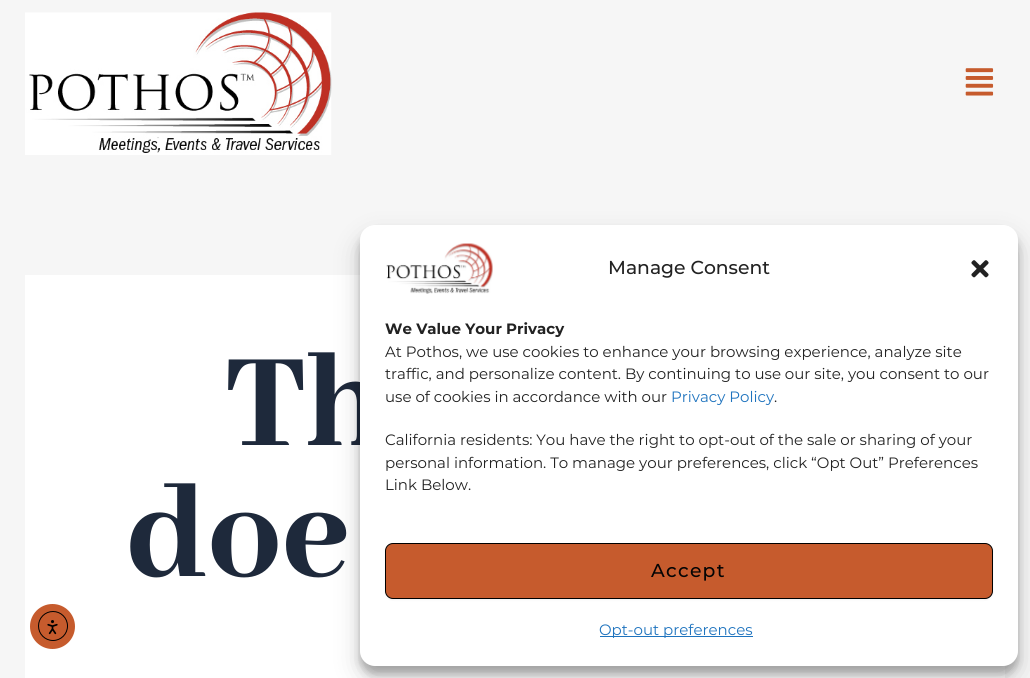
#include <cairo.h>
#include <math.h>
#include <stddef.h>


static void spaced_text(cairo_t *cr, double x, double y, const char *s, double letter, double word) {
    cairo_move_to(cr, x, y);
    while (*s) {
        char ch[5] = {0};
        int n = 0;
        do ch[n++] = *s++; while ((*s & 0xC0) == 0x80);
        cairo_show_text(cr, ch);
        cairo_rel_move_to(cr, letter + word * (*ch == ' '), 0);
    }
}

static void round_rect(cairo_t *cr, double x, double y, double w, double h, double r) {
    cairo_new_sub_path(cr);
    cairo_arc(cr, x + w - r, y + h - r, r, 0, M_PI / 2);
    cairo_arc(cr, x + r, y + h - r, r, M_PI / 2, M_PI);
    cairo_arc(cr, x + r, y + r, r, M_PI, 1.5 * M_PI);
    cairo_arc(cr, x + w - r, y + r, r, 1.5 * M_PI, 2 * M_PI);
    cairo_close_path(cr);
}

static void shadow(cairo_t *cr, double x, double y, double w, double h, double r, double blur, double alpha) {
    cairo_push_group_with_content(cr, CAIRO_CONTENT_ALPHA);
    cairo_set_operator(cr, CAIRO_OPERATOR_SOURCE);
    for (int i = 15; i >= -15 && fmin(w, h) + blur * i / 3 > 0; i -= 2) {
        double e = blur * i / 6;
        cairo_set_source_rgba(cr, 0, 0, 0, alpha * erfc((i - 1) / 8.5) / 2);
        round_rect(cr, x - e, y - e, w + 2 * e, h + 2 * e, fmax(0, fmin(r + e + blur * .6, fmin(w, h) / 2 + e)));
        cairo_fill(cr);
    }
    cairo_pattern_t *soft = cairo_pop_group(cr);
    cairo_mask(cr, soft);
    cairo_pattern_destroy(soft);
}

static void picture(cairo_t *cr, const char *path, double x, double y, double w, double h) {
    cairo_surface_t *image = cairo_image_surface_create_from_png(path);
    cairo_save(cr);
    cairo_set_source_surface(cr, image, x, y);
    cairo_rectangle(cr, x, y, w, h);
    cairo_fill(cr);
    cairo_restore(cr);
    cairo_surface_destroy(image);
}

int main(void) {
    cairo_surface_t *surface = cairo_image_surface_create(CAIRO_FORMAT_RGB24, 1030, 678);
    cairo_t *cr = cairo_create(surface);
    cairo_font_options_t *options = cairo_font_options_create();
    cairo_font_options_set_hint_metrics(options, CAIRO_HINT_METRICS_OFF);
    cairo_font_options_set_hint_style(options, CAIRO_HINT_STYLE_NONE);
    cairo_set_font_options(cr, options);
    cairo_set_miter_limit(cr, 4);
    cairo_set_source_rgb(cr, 0.961, 0.961, 0.961);
    cairo_paint(cr);
    picture(cr, "img1.png", 25, 12, 307, 143);
    picture(cr, "img2.png", 965, 68, 29, 28);
    cairo_set_source_rgb(cr, 1, 1, 1);
    cairo_rectangle(cr, 25, 275, 980, 403);
    cairo_fill(cr);
    cairo_select_font_face(cr, "Abhaya Libre ExtraBold", CAIRO_FONT_SLANT_NORMAL, CAIRO_FONT_WEIGHT_NORMAL);
    cairo_set_font_size(cr, 146);
    cairo_set_source_rgb(cr, 0.118, 0.161, 0.231);
    cairo_move_to(cr, 226, 445);
    cairo_show_text(cr, "Th");
    cairo_move_to(cr, 126, 576);
    cairo_show_text(cr, "doe");
    cairo_set_source_rgb(cr, 0, 0, 0);
    shadow(cr, 360, 233, 658, 441, 15, 4, 0.23);
    shadow(cr, 360, 238, 658, 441, 15, 12.5, 0.19);
    cairo_set_source_rgb(cr, 1, 1, 1);
    round_rect(cr, 360, 225, 658, 441, 15);
    cairo_fill(cr);
    picture(cr, "img3.png", 386, 243, 107, 51);
    cairo_select_font_face(cr, "Montserrat Medium", CAIRO_FONT_SLANT_NORMAL, CAIRO_FONT_WEIGHT_NORMAL);
    cairo_set_font_size(cr, 18.75);
    cairo_set_source_rgb(cr, 0.133, 0.133, 0.133);
    cairo_move_to(cr, 608, 274);
    cairo_show_text(cr, "Manage Consent");
    picture(cr, "img4.png", 971, 260, 18, 18);
    cairo_select_font_face(cr, "Montserrat", CAIRO_FONT_SLANT_NORMAL, CAIRO_FONT_WEIGHT_BOLD);
    cairo_set_font_size(cr, 15);
    cairo_move_to(cr, 385, 334);
    cairo_show_text(cr, "We Value Your Privacy");
    cairo_select_font_face(cr, "Montserrat", CAIRO_FONT_SLANT_NORMAL, CAIRO_FONT_WEIGHT_NORMAL);
    cairo_move_to(cr, 385, 357);
    cairo_show_text(cr, "At Pothos, we use cookies to enhance your browsing experience, analyze site");
    cairo_move_to(cr, 385, 379);
    cairo_show_text(cr, "traffic, and personalize content. By continuing to use our site, you consent to our");
    cairo_move_to(cr, 385, 402);
    cairo_show_text(cr, "use of cookies in accordance with our");
    cairo_set_source_rgb(cr, 0.118, 0.451, 0.745);
    cairo_move_to(cr, 671, 402);
    cairo_show_text(cr, "Privacy Policy");
    cairo_set_source_rgb(cr, 0.133, 0.133, 0.133);
    cairo_move_to(cr, 774, 402);
    cairo_show_text(cr, ".");
    cairo_move_to(cr, 385, 445);
    cairo_show_text(cr, "California residents: You have the right to opt-out of the sale or sharing of your");
    cairo_move_to(cr, 385, 468);
    cairo_show_text(cr, "personal information. To manage your preferences, click “Opt Out” Preferences");
    cairo_move_to(cr, 385, 490);
    cairo_show_text(cr, "Link Below.");
    cairo_set_source_rgb(cr, 0, 0, 0);
    shadow(cr, 385, 544, 608, 56, 8, 1, 0.05);
    cairo_set_source_rgb(cr, 0.776, 0.357, 0.176);
    round_rect(cr, 385.5, 543.5, 607, 55, 7.5);
    cairo_fill_preserve(cr);
    cairo_set_source_rgb(cr, 0, 0, 0);
    cairo_set_line_width(cr, 1);
    cairo_stroke(cr);
    cairo_select_font_face(cr, "Montserrat Medium", CAIRO_FONT_SLANT_NORMAL, CAIRO_FONT_WEIGHT_NORMAL);
    cairo_set_font_size(cr, 18.75);
    cairo_set_source_rgb(cr, 0.016, 0.016, 0.016);
    spaced_text(cr, 651, 577, "Accept", 1.25, 0);
    cairo_set_source_rgb(cr, 0.118, 0.451, 0.745);
    cairo_rectangle(cr, 600, 636, 153, 1);
    cairo_fill(cr);
    cairo_select_font_face(cr, "Montserrat", CAIRO_FONT_SLANT_NORMAL, CAIRO_FONT_WEIGHT_NORMAL);
    cairo_set_font_size(cr, 15);
    cairo_move_to(cr, 599, 635);
    cairo_show_text(cr, "Opt-out preferences");
    cairo_set_source_rgb(cr, 0.776, 0.357, 0.176);
    cairo_new_path(cr);
    cairo_arc(cr, 52.5, 626.5, 22.5, 0, 2 * M_PI);
    cairo_fill(cr);
    cairo_arc(cr, 53, 626, 14.5, 0, 2 * M_PI);
    cairo_set_source_rgb(cr, 0, 0, 0);
    cairo_stroke(cr);
    picture(cr, "img5.png", 47, 620, 11, 15);
    cairo_surface_write_to_png(surface, "page.png");
    cairo_font_options_destroy(options);
    cairo_destroy(cr);
    cairo_surface_destroy(surface);
    return 0;
}
